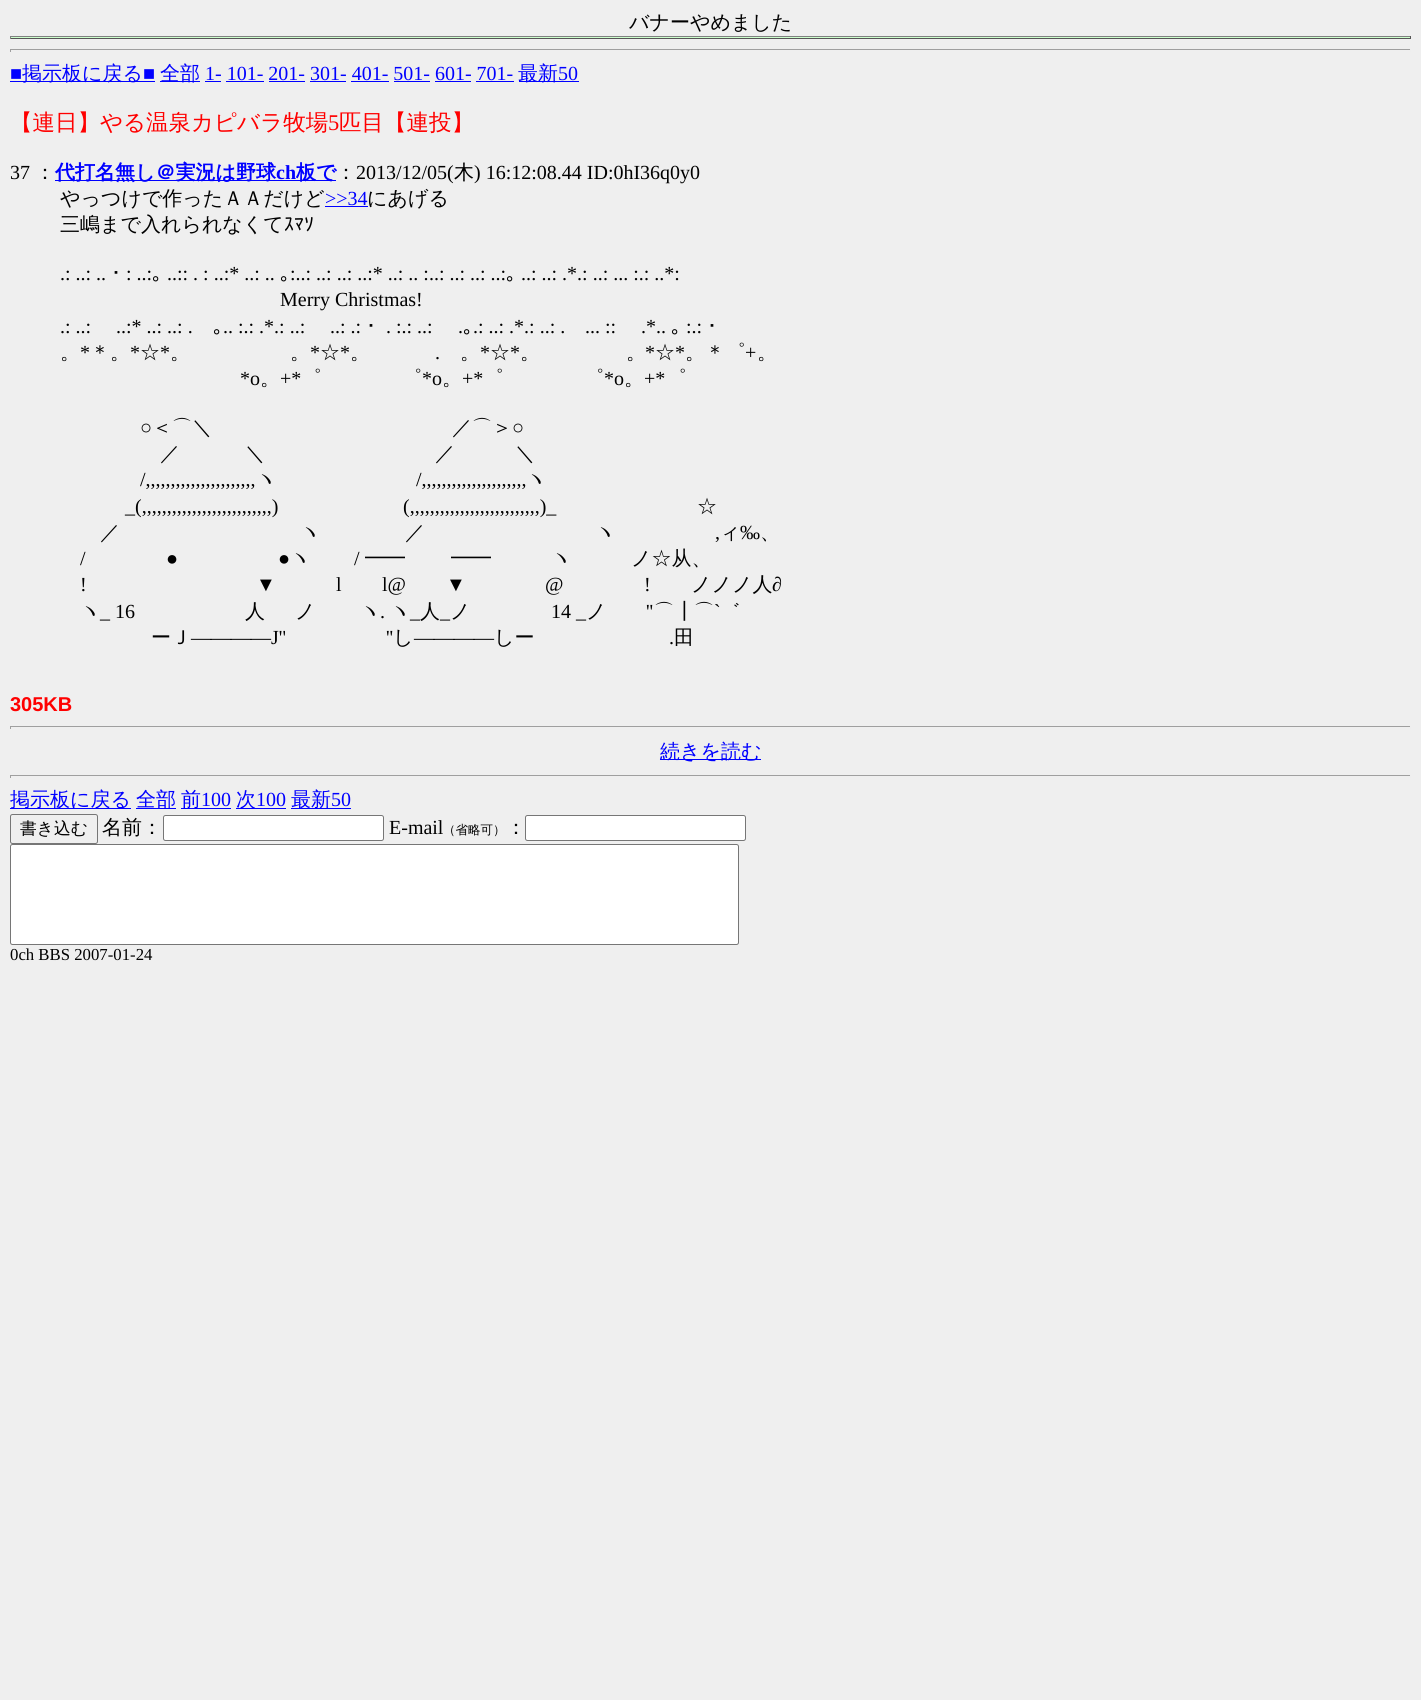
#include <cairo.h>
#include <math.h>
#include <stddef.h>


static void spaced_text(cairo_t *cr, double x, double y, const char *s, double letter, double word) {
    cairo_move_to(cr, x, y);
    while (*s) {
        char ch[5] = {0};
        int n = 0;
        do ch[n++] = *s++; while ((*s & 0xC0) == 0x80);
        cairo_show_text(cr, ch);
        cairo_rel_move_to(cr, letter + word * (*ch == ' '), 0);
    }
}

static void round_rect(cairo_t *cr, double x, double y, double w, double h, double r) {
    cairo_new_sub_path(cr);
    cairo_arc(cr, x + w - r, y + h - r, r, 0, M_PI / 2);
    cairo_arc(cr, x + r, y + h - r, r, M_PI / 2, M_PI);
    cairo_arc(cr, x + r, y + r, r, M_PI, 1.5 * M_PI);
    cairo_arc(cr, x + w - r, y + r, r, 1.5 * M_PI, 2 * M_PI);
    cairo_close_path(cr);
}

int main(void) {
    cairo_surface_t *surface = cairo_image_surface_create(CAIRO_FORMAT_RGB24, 1421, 1700);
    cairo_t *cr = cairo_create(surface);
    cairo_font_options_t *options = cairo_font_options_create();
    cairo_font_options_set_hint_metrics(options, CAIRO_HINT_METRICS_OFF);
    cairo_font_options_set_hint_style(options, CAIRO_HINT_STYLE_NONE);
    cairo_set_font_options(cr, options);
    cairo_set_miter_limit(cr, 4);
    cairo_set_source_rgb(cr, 0.937, 0.937, 0.937);
    cairo_paint(cr);
    cairo_select_font_face(cr, "WenQuanYi Zen Hei Medium", CAIRO_FONT_SLANT_NORMAL, CAIRO_FONT_WEIGHT_NORMAL);
    cairo_set_font_size(cr, 20);
    cairo_set_source_rgb(cr, 0, 0, 0);
    cairo_move_to(cr, 629, 29);
    cairo_show_text(cr, "バナーやめました");
    cairo_set_source_rgb(cr, 0.8, 1, 0.8);
    cairo_rectangle(cr, 10, 37, 1401, 1);
    cairo_fill(cr);
    cairo_set_source_rgb(cr, 0.502, 0.502, 0.502);
    cairo_rectangle(cr, 10, 36, 1401, 1);
    cairo_fill(cr);
    cairo_set_source_rgb(cr, 0.333, 0.333, 0.333);
    cairo_rectangle(cr, 1410, 36, 1, 3);
    cairo_fill(cr);
    cairo_rectangle(cr, 10, 38, 1401, 1);
    cairo_fill(cr);
    cairo_set_source_rgb(cr, 0.502, 0.502, 0.502);
    cairo_rectangle(cr, 10, 36, 1, 3);
    cairo_fill(cr);
    cairo_set_source_rgb(cr, 0.624, 0.624, 0.624);
    cairo_rectangle(cr, 10, 49, 1401, 1);
    cairo_fill(cr);
    cairo_set_source_rgb(cr, 0.933, 0.933, 0.933);
    cairo_rectangle(cr, 1410, 49, 1, 3);
    cairo_fill(cr);
    cairo_set_source_rgb(cr, 0.624, 0.624, 0.624);
    cairo_rectangle(cr, 10, 49, 1, 3);
    cairo_fill(cr);
    cairo_select_font_face(cr, "Liberation Serif", CAIRO_FONT_SLANT_NORMAL, CAIRO_FONT_WEIGHT_NORMAL);
    cairo_set_source_rgb(cr, 0, 0, 1);
    cairo_move_to(cr, 10, 80);
    cairo_show_text(cr, "■");
    cairo_rectangle(cr, 10, 81, 145, 1);
    cairo_fill(cr);
    cairo_select_font_face(cr, "WenQuanYi Zen Hei Medium", CAIRO_FONT_SLANT_NORMAL, CAIRO_FONT_WEIGHT_NORMAL);
    cairo_move_to(cr, 22, 80);
    cairo_show_text(cr, "掲示板に戻る");
    cairo_select_font_face(cr, "Liberation Serif", CAIRO_FONT_SLANT_NORMAL, CAIRO_FONT_WEIGHT_NORMAL);
    cairo_move_to(cr, 143, 80);
    cairo_show_text(cr, "■");
    cairo_rectangle(cr, 160, 81, 40, 1);
    cairo_fill(cr);
    cairo_select_font_face(cr, "WenQuanYi Zen Hei Medium", CAIRO_FONT_SLANT_NORMAL, CAIRO_FONT_WEIGHT_NORMAL);
    cairo_move_to(cr, 160, 80);
    cairo_show_text(cr, "全部");
    cairo_select_font_face(cr, "Liberation Serif", CAIRO_FONT_SLANT_NORMAL, CAIRO_FONT_WEIGHT_NORMAL);
    cairo_move_to(cr, 205, 80);
    cairo_show_text(cr, "1- 101- 201- 301- 401- 501- 601- 701-");
    cairo_rectangle(cr, 205, 81, 16, 1);
    cairo_fill(cr);
    cairo_rectangle(cr, 519, 81, 60, 1);
    cairo_fill(cr);
    cairo_select_font_face(cr, "WenQuanYi Zen Hei Medium", CAIRO_FONT_SLANT_NORMAL, CAIRO_FONT_WEIGHT_NORMAL);
    cairo_move_to(cr, 518, 80);
    cairo_show_text(cr, "最新");
    cairo_select_font_face(cr, "Liberation Serif", CAIRO_FONT_SLANT_NORMAL, CAIRO_FONT_WEIGHT_NORMAL);
    cairo_move_to(cr, 558, 80);
    cairo_show_text(cr, "50");
    cairo_rectangle(cr, 226, 81, 38, 1);
    cairo_fill(cr);
    cairo_rectangle(cr, 269, 81, 36, 1);
    cairo_fill(cr);
    cairo_rectangle(cr, 310, 81, 36, 1);
    cairo_fill(cr);
    cairo_rectangle(cr, 351, 81, 38, 1);
    cairo_fill(cr);
    cairo_rectangle(cr, 394, 81, 36, 1);
    cairo_fill(cr);
    cairo_rectangle(cr, 435, 81, 36, 1);
    cairo_fill(cr);
    cairo_rectangle(cr, 476, 81, 38, 1);
    cairo_fill(cr);
    cairo_select_font_face(cr, "WenQuanYi Zen Hei Medium", CAIRO_FONT_SLANT_NORMAL, CAIRO_FONT_WEIGHT_NORMAL);
    cairo_set_font_size(cr, 22.5);
    cairo_set_source_rgb(cr, 1, 0, 0);
    cairo_move_to(cr, 10, 130);
    cairo_show_text(cr, "【連日】やる温泉カピバラ牧場");
    cairo_select_font_face(cr, "Liberation Serif", CAIRO_FONT_SLANT_NORMAL, CAIRO_FONT_WEIGHT_NORMAL);
    cairo_move_to(cr, 328, 130);
    cairo_show_text(cr, "5");
    cairo_select_font_face(cr, "WenQuanYi Zen Hei Medium", CAIRO_FONT_SLANT_NORMAL, CAIRO_FONT_WEIGHT_NORMAL);
    cairo_move_to(cr, 339, 130);
    cairo_show_text(cr, "匹目【連投】");
    cairo_select_font_face(cr, "Liberation Serif", CAIRO_FONT_SLANT_NORMAL, CAIRO_FONT_WEIGHT_NORMAL);
    cairo_set_font_size(cr, 20);
    cairo_set_source_rgb(cr, 0, 0, 0);
    cairo_move_to(cr, 10, 179);
    cairo_show_text(cr, "37");
    cairo_select_font_face(cr, "WenQuanYi Zen Hei Medium", CAIRO_FONT_SLANT_NORMAL, CAIRO_FONT_WEIGHT_NORMAL);
    cairo_move_to(cr, 35, 179);
    cairo_show_text(cr, "：");
    cairo_set_source_rgb(cr, 0, 0, 1);
    cairo_rectangle(cr, 55, 180, 281, 1);
    cairo_fill(cr);
    cairo_select_font_face(cr, "WenQuanYi Zen Hei", CAIRO_FONT_SLANT_NORMAL, CAIRO_FONT_WEIGHT_BOLD);
    cairo_move_to(cr, 55, 179);
    cairo_show_text(cr, "代打名無し＠実況は野球");
    cairo_select_font_face(cr, "Liberation Serif", CAIRO_FONT_SLANT_NORMAL, CAIRO_FONT_WEIGHT_BOLD);
    cairo_move_to(cr, 276, 179);
    cairo_show_text(cr, "ch");
    cairo_select_font_face(cr, "WenQuanYi Zen Hei", CAIRO_FONT_SLANT_NORMAL, CAIRO_FONT_WEIGHT_BOLD);
    cairo_move_to(cr, 296, 179);
    cairo_show_text(cr, "板で");
    cairo_select_font_face(cr, "WenQuanYi Zen Hei Medium", CAIRO_FONT_SLANT_NORMAL, CAIRO_FONT_WEIGHT_NORMAL);
    cairo_set_source_rgb(cr, 0, 0, 0);
    cairo_move_to(cr, 336, 179);
    cairo_show_text(cr, "：");
    cairo_select_font_face(cr, "Liberation Serif", CAIRO_FONT_SLANT_NORMAL, CAIRO_FONT_WEIGHT_NORMAL);
    cairo_move_to(cr, 356, 179);
    cairo_show_text(cr, "2013/12/05(");
    cairo_select_font_face(cr, "WenQuanYi Zen Hei Medium", CAIRO_FONT_SLANT_NORMAL, CAIRO_FONT_WEIGHT_NORMAL);
    cairo_move_to(cr, 454, 179);
    cairo_show_text(cr, "木");
    cairo_select_font_face(cr, "Liberation Serif", CAIRO_FONT_SLANT_NORMAL, CAIRO_FONT_WEIGHT_NORMAL);
    cairo_move_to(cr, 474, 179);
    cairo_show_text(cr, ") 16:12:08.44 ID:0hI36q0y0");
    cairo_select_font_face(cr, "WenQuanYi Zen Hei Medium", CAIRO_FONT_SLANT_NORMAL, CAIRO_FONT_WEIGHT_NORMAL);
    cairo_move_to(cr, 60, 205);
    cairo_show_text(cr, "やっつけで作ったＡＡだけど");
    cairo_select_font_face(cr, "Liberation Serif", CAIRO_FONT_SLANT_NORMAL, CAIRO_FONT_WEIGHT_NORMAL);
    cairo_set_source_rgb(cr, 0, 0, 1);
    cairo_move_to(cr, 325, 205);
    cairo_show_text(cr, ">>34");
    cairo_rectangle(cr, 325, 206, 43, 1);
    cairo_fill(cr);
    cairo_select_font_face(cr, "WenQuanYi Zen Hei Medium", CAIRO_FONT_SLANT_NORMAL, CAIRO_FONT_WEIGHT_NORMAL);
    cairo_set_source_rgb(cr, 0, 0, 0);
    cairo_move_to(cr, 367, 205);
    cairo_show_text(cr, "にあげる");
    cairo_move_to(cr, 60, 231);
    cairo_show_text(cr, "三嶋まで入れられなくて");
    cairo_select_font_face(cr, "IPAGothic", CAIRO_FONT_SLANT_NORMAL, CAIRO_FONT_WEIGHT_NORMAL);
    cairo_move_to(cr, 284, 231);
    cairo_show_text(cr, "ｽﾏｿ");
    cairo_select_font_face(cr, "Liberation Serif", CAIRO_FONT_SLANT_NORMAL, CAIRO_FONT_WEIGHT_NORMAL);
    cairo_move_to(cr, 60, 280);
    cairo_show_text(cr, ".: ..: ..");
    cairo_select_font_face(cr, "IPAGothic", CAIRO_FONT_SLANT_NORMAL, CAIRO_FONT_WEIGHT_NORMAL);
    cairo_move_to(cr, 106, 280);
    cairo_show_text(cr, "・");
    cairo_select_font_face(cr, "Liberation Serif", CAIRO_FONT_SLANT_NORMAL, CAIRO_FONT_WEIGHT_NORMAL);
    cairo_move_to(cr, 126, 280);
    cairo_show_text(cr, ": ..:");
    cairo_move_to(cr, 167, 280);
    cairo_show_text(cr, "..:: . : ..:* ..: ..");
    cairo_move_to(cr, 290, 280);
    cairo_show_text(cr, ":..: ..: ..: ..:* ..: .. :..: ..: ..: ..:");
    cairo_move_to(cr, 521, 280);
    cairo_show_text(cr, "..: ..: .*.: ..: ... :.: ..*:");
    cairo_select_font_face(cr, "IPAGothic", CAIRO_FONT_SLANT_NORMAL, CAIRO_FONT_WEIGHT_NORMAL);
    cairo_move_to(cr, 152, 280);
    cairo_show_text(cr, "｡");
    cairo_move_to(cr, 280, 280);
    cairo_show_text(cr, "｡");
    cairo_move_to(cr, 506, 280);
    cairo_show_text(cr, "｡");
    cairo_select_font_face(cr, "Liberation Serif", CAIRO_FONT_SLANT_NORMAL, CAIRO_FONT_WEIGHT_NORMAL);
    cairo_move_to(cr, 280, 306);
    cairo_show_text(cr, "Merry Christmas!");
    cairo_move_to(cr, 60, 333);
    cairo_show_text(cr, ".: ..:");
    cairo_move_to(cr, 116, 333);
    cairo_show_text(cr, "..:* ..: ..: .");
    cairo_move_to(cr, 223, 333);
    cairo_show_text(cr, ".. :.: .*.: ..:");
    cairo_move_to(cr, 330, 333);
    cairo_show_text(cr, "..: .:");
    cairo_select_font_face(cr, "IPAGothic", CAIRO_FONT_SLANT_NORMAL, CAIRO_FONT_WEIGHT_NORMAL);
    cairo_move_to(cr, 361, 333);
    cairo_show_text(cr, "・");
    cairo_select_font_face(cr, "Liberation Serif", CAIRO_FONT_SLANT_NORMAL, CAIRO_FONT_WEIGHT_NORMAL);
    cairo_move_to(cr, 386, 333);
    cairo_show_text(cr, ". :.: ..:");
    cairo_move_to(cr, 473, 333);
    cairo_show_text(cr, ".: ..: .*.: ..: .");
    cairo_move_to(cr, 585, 333);
    cairo_show_text(cr, "... ::");
    cairo_move_to(cr, 641, 333);
    cairo_show_text(cr, ".*..");
    cairo_move_to(cr, 686, 333);
    cairo_show_text(cr, ":.:");
    cairo_select_font_face(cr, "IPAGothic", CAIRO_FONT_SLANT_NORMAL, CAIRO_FONT_WEIGHT_NORMAL);
    cairo_move_to(cr, 702, 333);
    cairo_show_text(cr, "・");
    cairo_move_to(cr, 213, 333);
    cairo_show_text(cr, "｡");
    cairo_select_font_face(cr, "Liberation Serif", CAIRO_FONT_SLANT_NORMAL, CAIRO_FONT_WEIGHT_NORMAL);
    cairo_move_to(cr, 458, 333);
    cairo_show_text(cr, ".");
    cairo_select_font_face(cr, "IPAGothic", CAIRO_FONT_SLANT_NORMAL, CAIRO_FONT_WEIGHT_NORMAL);
    cairo_move_to(cr, 463, 333);
    cairo_show_text(cr, "｡");
    cairo_move_to(cr, 671, 333);
    cairo_show_text(cr, "｡");
    cairo_select_font_face(cr, "Liberation Serif", CAIRO_FONT_SLANT_NORMAL, CAIRO_FONT_WEIGHT_NORMAL);
    cairo_move_to(cr, 80, 359);
    cairo_show_text(cr, "*");
    cairo_select_font_face(cr, "WenQuanYi Zen Hei Medium", CAIRO_FONT_SLANT_NORMAL, CAIRO_FONT_WEIGHT_NORMAL);
    cairo_move_to(cr, 90, 359);
    cairo_show_text(cr, "＊。");
    cairo_select_font_face(cr, "Liberation Serif", CAIRO_FONT_SLANT_NORMAL, CAIRO_FONT_WEIGHT_NORMAL);
    cairo_move_to(cr, 130, 359);
    cairo_show_text(cr, "*");
    cairo_select_font_face(cr, "WenQuanYi Zen Hei Medium", CAIRO_FONT_SLANT_NORMAL, CAIRO_FONT_WEIGHT_NORMAL);
    cairo_move_to(cr, 140, 359);
    cairo_show_text(cr, "☆");
    cairo_select_font_face(cr, "Liberation Serif", CAIRO_FONT_SLANT_NORMAL, CAIRO_FONT_WEIGHT_NORMAL);
    cairo_move_to(cr, 160, 359);
    cairo_show_text(cr, "*");
    cairo_move_to(cr, 310, 359);
    cairo_show_text(cr, "*");
    cairo_select_font_face(cr, "WenQuanYi Zen Hei Medium", CAIRO_FONT_SLANT_NORMAL, CAIRO_FONT_WEIGHT_NORMAL);
    cairo_move_to(cr, 320, 359);
    cairo_show_text(cr, "☆");
    cairo_select_font_face(cr, "Liberation Serif", CAIRO_FONT_SLANT_NORMAL, CAIRO_FONT_WEIGHT_NORMAL);
    cairo_move_to(cr, 340, 359);
    cairo_show_text(cr, "*");
    cairo_move_to(cr, 480, 359);
    cairo_show_text(cr, "*");
    cairo_select_font_face(cr, "WenQuanYi Zen Hei Medium", CAIRO_FONT_SLANT_NORMAL, CAIRO_FONT_WEIGHT_NORMAL);
    cairo_move_to(cr, 490, 359);
    cairo_show_text(cr, "☆");
    cairo_select_font_face(cr, "Liberation Serif", CAIRO_FONT_SLANT_NORMAL, CAIRO_FONT_WEIGHT_NORMAL);
    cairo_move_to(cr, 510, 359);
    cairo_show_text(cr, "*");
    cairo_move_to(cr, 645, 359);
    cairo_show_text(cr, "*");
    cairo_select_font_face(cr, "WenQuanYi Zen Hei Medium", CAIRO_FONT_SLANT_NORMAL, CAIRO_FONT_WEIGHT_NORMAL);
    cairo_move_to(cr, 655, 359);
    cairo_show_text(cr, "☆");
    cairo_select_font_face(cr, "Liberation Serif", CAIRO_FONT_SLANT_NORMAL, CAIRO_FONT_WEIGHT_NORMAL);
    cairo_move_to(cr, 675, 359);
    cairo_show_text(cr, "*");
    cairo_select_font_face(cr, "WenQuanYi Zen Hei Medium", CAIRO_FONT_SLANT_NORMAL, CAIRO_FONT_WEIGHT_NORMAL);
    cairo_move_to(cr, 685, 359);
    cairo_show_text(cr, "。＊゜");
    cairo_select_font_face(cr, "Liberation Serif", CAIRO_FONT_SLANT_NORMAL, CAIRO_FONT_WEIGHT_NORMAL);
    cairo_move_to(cr, 745, 359);
    cairo_show_text(cr, "+");
    cairo_select_font_face(cr, "WenQuanYi Zen Hei Medium", CAIRO_FONT_SLANT_NORMAL, CAIRO_FONT_WEIGHT_NORMAL);
    cairo_move_to(cr, 60, 359);
    cairo_show_text(cr, "。");
    cairo_move_to(cr, 170, 359);
    cairo_show_text(cr, "。　　　　　。");
    cairo_move_to(cr, 350, 359);
    cairo_show_text(cr, "。");
    cairo_select_font_face(cr, "Liberation Serif", CAIRO_FONT_SLANT_NORMAL, CAIRO_FONT_WEIGHT_NORMAL);
    cairo_move_to(cr, 435, 359);
    cairo_show_text(cr, ".");
    cairo_select_font_face(cr, "WenQuanYi Zen Hei Medium", CAIRO_FONT_SLANT_NORMAL, CAIRO_FONT_WEIGHT_NORMAL);
    cairo_move_to(cr, 460, 359);
    cairo_show_text(cr, "。");
    cairo_move_to(cr, 520, 359);
    cairo_show_text(cr, "。　　　 　。");
    cairo_move_to(cr, 757, 359);
    cairo_show_text(cr, "。");
    cairo_move_to(cr, 301, 385);
    cairo_show_text(cr, "゜　　　　゜");
    cairo_move_to(cr, 483, 385);
    cairo_show_text(cr, "゜　　　　゜");
    cairo_move_to(cr, 666, 385);
    cairo_show_text(cr, "゜");
    cairo_select_font_face(cr, "Liberation Serif", CAIRO_FONT_SLANT_NORMAL, CAIRO_FONT_WEIGHT_NORMAL);
    cairo_move_to(cr, 240, 385);
    cairo_show_text(cr, "*o");
    cairo_move_to(cr, 280, 385);
    cairo_show_text(cr, "+*");
    cairo_move_to(cr, 422, 385);
    cairo_show_text(cr, "*o");
    cairo_move_to(cr, 462, 385);
    cairo_show_text(cr, "+*");
    cairo_move_to(cr, 604, 385);
    cairo_show_text(cr, "*o");
    cairo_move_to(cr, 644, 385);
    cairo_show_text(cr, "+*");
    cairo_select_font_face(cr, "WenQuanYi Zen Hei Medium", CAIRO_FONT_SLANT_NORMAL, CAIRO_FONT_WEIGHT_NORMAL);
    cairo_move_to(cr, 260, 385);
    cairo_show_text(cr, "。");
    cairo_move_to(cr, 442, 385);
    cairo_show_text(cr, "。");
    cairo_move_to(cr, 624, 385);
    cairo_show_text(cr, "。");
    cairo_select_font_face(cr, "Liberation Serif", CAIRO_FONT_SLANT_NORMAL, CAIRO_FONT_WEIGHT_NORMAL);
    cairo_move_to(cr, 140, 434);
    cairo_show_text(cr, "○");
    cairo_select_font_face(cr, "WenQuanYi Zen Hei Medium", CAIRO_FONT_SLANT_NORMAL, CAIRO_FONT_WEIGHT_NORMAL);
    cairo_move_to(cr, 152, 434);
    cairo_show_text(cr, "＜⌒＼　　　　　　　　　　　　／⌒＞");
    cairo_select_font_face(cr, "Liberation Serif", CAIRO_FONT_SLANT_NORMAL, CAIRO_FONT_WEIGHT_NORMAL);
    cairo_move_to(cr, 512, 434);
    cairo_show_text(cr, "○");
    cairo_select_font_face(cr, "WenQuanYi Zen Hei Medium", CAIRO_FONT_SLANT_NORMAL, CAIRO_FONT_WEIGHT_NORMAL);
    spaced_text(cr, 160, 460, "／　　　 ＼　 　　　　　　　 ／　　　＼", 0, -1);
    cairo_select_font_face(cr, "Liberation Serif", CAIRO_FONT_SLANT_NORMAL, CAIRO_FONT_WEIGHT_NORMAL);
    cairo_move_to(cr, 140, 486);
    cairo_show_text(cr, "/,,,,,,,,,,,,,,,,,,,,,,");
    cairo_select_font_face(cr, "WenQuanYi Zen Hei Medium", CAIRO_FONT_SLANT_NORMAL, CAIRO_FONT_WEIGHT_NORMAL);
    cairo_move_to(cr, 256, 486);
    cairo_show_text(cr, "ヽ");
    cairo_select_font_face(cr, "Liberation Serif", CAIRO_FONT_SLANT_NORMAL, CAIRO_FONT_WEIGHT_NORMAL);
    cairo_move_to(cr, 416, 486);
    cairo_show_text(cr, "/,,,,,,,,,,,,,,,,,,,,,");
    cairo_select_font_face(cr, "WenQuanYi Zen Hei Medium", CAIRO_FONT_SLANT_NORMAL, CAIRO_FONT_WEIGHT_NORMAL);
    cairo_move_to(cr, 526, 486);
    cairo_show_text(cr, "ヽ");
    cairo_select_font_face(cr, "Liberation Serif", CAIRO_FONT_SLANT_NORMAL, CAIRO_FONT_WEIGHT_NORMAL);
    cairo_move_to(cr, 125, 513);
    cairo_show_text(cr, "_(,,,,,,,,,,,,,,,,,,,,,,,,,,)");
    cairo_move_to(cr, 403, 513);
    cairo_show_text(cr, "(,,,,,,,,,,,,,,,,,,,,,,,,,,)_");
    cairo_select_font_face(cr, "WenQuanYi Zen Hei Medium", CAIRO_FONT_SLANT_NORMAL, CAIRO_FONT_WEIGHT_NORMAL);
    cairo_move_to(cr, 697, 513);
    cairo_show_text(cr, "☆");
    spaced_text(cr, 100, 539, "／　　　　　　　　　ヽ　　　　 ／　　　　　　　 　 ヽ", 0, -1);
    cairo_select_font_face(cr, "Liberation Serif", CAIRO_FONT_SLANT_NORMAL, CAIRO_FONT_WEIGHT_NORMAL);
    cairo_move_to(cr, 715, 539);
    cairo_show_text(cr, ",");
    cairo_select_font_face(cr, "WenQuanYi Zen Hei Medium", CAIRO_FONT_SLANT_NORMAL, CAIRO_FONT_WEIGHT_NORMAL);
    cairo_move_to(cr, 720, 539);
    cairo_show_text(cr, "ィ");
    cairo_select_font_face(cr, "Liberation Serif", CAIRO_FONT_SLANT_NORMAL, CAIRO_FONT_WEIGHT_NORMAL);
    cairo_move_to(cr, 740, 539);
    cairo_show_text(cr, "‰");
    cairo_select_font_face(cr, "WenQuanYi Zen Hei Medium", CAIRO_FONT_SLANT_NORMAL, CAIRO_FONT_WEIGHT_NORMAL);
    cairo_move_to(cr, 760, 539);
    cairo_show_text(cr, "、");
    cairo_select_font_face(cr, "Liberation Serif", CAIRO_FONT_SLANT_NORMAL, CAIRO_FONT_WEIGHT_NORMAL);
    cairo_move_to(cr, 80, 565);
    cairo_show_text(cr, "/");
    cairo_move_to(cr, 166, 565);
    cairo_show_text(cr, "●");
    cairo_move_to(cr, 278, 565);
    cairo_show_text(cr, "●");
    cairo_select_font_face(cr, "WenQuanYi Zen Hei Medium", CAIRO_FONT_SLANT_NORMAL, CAIRO_FONT_WEIGHT_NORMAL);
    cairo_move_to(cr, 290, 565);
    cairo_show_text(cr, "ヽ");
    cairo_select_font_face(cr, "Liberation Serif", CAIRO_FONT_SLANT_NORMAL, CAIRO_FONT_WEIGHT_NORMAL);
    cairo_move_to(cr, 354, 565);
    cairo_show_text(cr, "/");
    cairo_select_font_face(cr, "WenQuanYi Zen Hei Medium", CAIRO_FONT_SLANT_NORMAL, CAIRO_FONT_WEIGHT_NORMAL);
    cairo_move_to(cr, 365, 565);
    cairo_show_text(cr, "━━ 　　━━　　　ヽ　　　ノ☆从、");
    cairo_select_font_face(cr, "Liberation Serif", CAIRO_FONT_SLANT_NORMAL, CAIRO_FONT_WEIGHT_NORMAL);
    cairo_move_to(cr, 80, 591);
    cairo_show_text(cr, "!");
    cairo_move_to(cr, 256, 591);
    cairo_show_text(cr, "▼");
    cairo_move_to(cr, 336, 591);
    cairo_show_text(cr, "l");
    cairo_move_to(cr, 382, 591);
    cairo_show_text(cr, "l@");
    cairo_move_to(cr, 446, 591);
    cairo_show_text(cr, "▼");
    cairo_move_to(cr, 545, 591);
    cairo_show_text(cr, "@");
    cairo_move_to(cr, 644, 591);
    cairo_show_text(cr, "!");
    cairo_select_font_face(cr, "WenQuanYi Zen Hei Medium", CAIRO_FONT_SLANT_NORMAL, CAIRO_FONT_WEIGHT_NORMAL);
    cairo_move_to(cr, 691, 591);
    cairo_show_text(cr, "ノノノ人");
    cairo_select_font_face(cr, "Liberation Serif", CAIRO_FONT_SLANT_NORMAL, CAIRO_FONT_WEIGHT_NORMAL);
    cairo_move_to(cr, 772, 591);
    cairo_show_text(cr, "∂");
    cairo_select_font_face(cr, "WenQuanYi Zen Hei Medium", CAIRO_FONT_SLANT_NORMAL, CAIRO_FONT_WEIGHT_NORMAL);
    cairo_move_to(cr, 80, 618);
    cairo_show_text(cr, "ヽ");
    cairo_select_font_face(cr, "Liberation Serif", CAIRO_FONT_SLANT_NORMAL, CAIRO_FONT_WEIGHT_NORMAL);
    cairo_move_to(cr, 100, 618);
    cairo_show_text(cr, "_ 16");
    cairo_select_font_face(cr, "WenQuanYi Zen Hei Medium", CAIRO_FONT_SLANT_NORMAL, CAIRO_FONT_WEIGHT_NORMAL);
    cairo_move_to(cr, 245, 618);
    cairo_show_text(cr, "人");
    cairo_move_to(cr, 295, 618);
    cairo_show_text(cr, "ノ");
    cairo_move_to(cr, 360, 618);
    cairo_show_text(cr, "ヽ");
    cairo_move_to(cr, 390, 618);
    cairo_show_text(cr, "ヽ");
    cairo_select_font_face(cr, "Liberation Serif", CAIRO_FONT_SLANT_NORMAL, CAIRO_FONT_WEIGHT_NORMAL);
    cairo_move_to(cr, 410, 618);
    cairo_show_text(cr, "_");
    cairo_select_font_face(cr, "WenQuanYi Zen Hei Medium", CAIRO_FONT_SLANT_NORMAL, CAIRO_FONT_WEIGHT_NORMAL);
    cairo_move_to(cr, 420, 618);
    cairo_show_text(cr, "人");
    cairo_move_to(cr, 450, 618);
    cairo_show_text(cr, "ノ");
    cairo_select_font_face(cr, "Liberation Serif", CAIRO_FONT_SLANT_NORMAL, CAIRO_FONT_WEIGHT_NORMAL);
    cairo_move_to(cr, 551, 618);
    cairo_show_text(cr, "14 _");
    cairo_select_font_face(cr, "WenQuanYi Zen Hei Medium", CAIRO_FONT_SLANT_NORMAL, CAIRO_FONT_WEIGHT_NORMAL);
    cairo_move_to(cr, 586, 618);
    cairo_show_text(cr, "ノ");
    cairo_select_font_face(cr, "Liberation Serif", CAIRO_FONT_SLANT_NORMAL, CAIRO_FONT_WEIGHT_NORMAL);
    cairo_move_to(cr, 646, 618);
    cairo_show_text(cr, "''");
    cairo_select_font_face(cr, "WenQuanYi Zen Hei Medium", CAIRO_FONT_SLANT_NORMAL, CAIRO_FONT_WEIGHT_NORMAL);
    cairo_move_to(cr, 654, 618);
    cairo_show_text(cr, "⌒┃⌒");
    cairo_select_font_face(cr, "Liberation Serif", CAIRO_FONT_SLANT_NORMAL, CAIRO_FONT_WEIGHT_NORMAL);
    cairo_move_to(cr, 714, 618);
    cairo_show_text(cr, "`");
    cairo_select_font_face(cr, "WenQuanYi Zen Hei Medium", CAIRO_FONT_SLANT_NORMAL, CAIRO_FONT_WEIGHT_NORMAL);
    cairo_move_to(cr, 720, 618);
    cairo_show_text(cr, "゛");
    cairo_select_font_face(cr, "Liberation Serif", CAIRO_FONT_SLANT_NORMAL, CAIRO_FONT_WEIGHT_NORMAL);
    cairo_move_to(cr, 380, 618);
    cairo_show_text(cr, ".");
    cairo_move_to(cr, 440, 618);
    cairo_show_text(cr, "_");
    cairo_select_font_face(cr, "WenQuanYi Zen Hei Medium", CAIRO_FONT_SLANT_NORMAL, CAIRO_FONT_WEIGHT_NORMAL);
    cairo_move_to(cr, 151, 644);
    cairo_show_text(cr, "ーＪ");
    cairo_select_font_face(cr, "Liberation Serif", CAIRO_FONT_SLANT_NORMAL, CAIRO_FONT_WEIGHT_NORMAL);
    cairo_move_to(cr, 191, 644);
    cairo_show_text(cr, "――――J''");
    cairo_move_to(cr, 386, 644);
    cairo_show_text(cr, "''");
    cairo_select_font_face(cr, "WenQuanYi Zen Hei Medium", CAIRO_FONT_SLANT_NORMAL, CAIRO_FONT_WEIGHT_NORMAL);
    cairo_move_to(cr, 393, 644);
    cairo_show_text(cr, "し");
    cairo_move_to(cr, 494, 644);
    cairo_show_text(cr, "しー");
    cairo_move_to(cr, 674, 644);
    cairo_show_text(cr, "田");
    cairo_select_font_face(cr, "Liberation Serif", CAIRO_FONT_SLANT_NORMAL, CAIRO_FONT_WEIGHT_NORMAL);
    cairo_move_to(cr, 414, 644);
    cairo_show_text(cr, "――――");
    cairo_move_to(cr, 669, 644);
    cairo_show_text(cr, ".");
    cairo_select_font_face(cr, "Liberation Sans", CAIRO_FONT_SLANT_NORMAL, CAIRO_FONT_WEIGHT_BOLD);
    cairo_set_source_rgb(cr, 1, 0, 0);
    cairo_move_to(cr, 10, 711);
    cairo_show_text(cr, "305KB");
    cairo_set_source_rgb(cr, 0.624, 0.624, 0.624);
    cairo_rectangle(cr, 10, 726, 1401, 1);
    cairo_fill(cr);
    cairo_set_source_rgb(cr, 0.933, 0.933, 0.933);
    cairo_rectangle(cr, 1410, 726, 1, 3);
    cairo_fill(cr);
    cairo_set_source_rgb(cr, 0.624, 0.624, 0.624);
    cairo_rectangle(cr, 10, 726, 1, 3);
    cairo_fill(cr);
    cairo_set_source_rgb(cr, 0, 0, 1);
    cairo_rectangle(cr, 660, 759, 101, 1);
    cairo_fill(cr);
    cairo_select_font_face(cr, "WenQuanYi Zen Hei Medium", CAIRO_FONT_SLANT_NORMAL, CAIRO_FONT_WEIGHT_NORMAL);
    cairo_move_to(cr, 660, 758);
    cairo_show_text(cr, "続きを読む");
    cairo_set_source_rgb(cr, 0.624, 0.624, 0.624);
    cairo_rectangle(cr, 10, 775, 1401, 1);
    cairo_fill(cr);
    cairo_set_source_rgb(cr, 0.933, 0.933, 0.933);
    cairo_rectangle(cr, 1410, 775, 1, 3);
    cairo_fill(cr);
    cairo_set_source_rgb(cr, 0.624, 0.624, 0.624);
    cairo_rectangle(cr, 10, 775, 1, 3);
    cairo_fill(cr);
    cairo_set_source_rgb(cr, 0, 0, 1);
    cairo_rectangle(cr, 10, 808, 121, 1);
    cairo_fill(cr);
    cairo_move_to(cr, 10, 806);
    cairo_show_text(cr, "掲示板に戻る");
    cairo_rectangle(cr, 136, 808, 40, 1);
    cairo_fill(cr);
    cairo_move_to(cr, 136, 806);
    cairo_show_text(cr, "全部");
    cairo_rectangle(cr, 181, 808, 50, 1);
    cairo_fill(cr);
    cairo_move_to(cr, 181, 806);
    cairo_show_text(cr, "前");
    cairo_select_font_face(cr, "Liberation Serif", CAIRO_FONT_SLANT_NORMAL, CAIRO_FONT_WEIGHT_NORMAL);
    cairo_move_to(cr, 201, 806);
    cairo_show_text(cr, "100");
    cairo_rectangle(cr, 236, 808, 50, 1);
    cairo_fill(cr);
    cairo_select_font_face(cr, "WenQuanYi Zen Hei Medium", CAIRO_FONT_SLANT_NORMAL, CAIRO_FONT_WEIGHT_NORMAL);
    cairo_move_to(cr, 236, 806);
    cairo_show_text(cr, "次");
    cairo_select_font_face(cr, "Liberation Serif", CAIRO_FONT_SLANT_NORMAL, CAIRO_FONT_WEIGHT_NORMAL);
    cairo_move_to(cr, 256, 806);
    cairo_show_text(cr, "100");
    cairo_rectangle(cr, 291, 808, 60, 1);
    cairo_fill(cr);
    cairo_select_font_face(cr, "WenQuanYi Zen Hei Medium", CAIRO_FONT_SLANT_NORMAL, CAIRO_FONT_WEIGHT_NORMAL);
    cairo_move_to(cr, 291, 806);
    cairo_show_text(cr, "最新");
    cairo_select_font_face(cr, "Liberation Serif", CAIRO_FONT_SLANT_NORMAL, CAIRO_FONT_WEIGHT_NORMAL);
    cairo_move_to(cr, 331, 806);
    cairo_show_text(cr, "50");
    round_rect(cr, 10.5, 814.5, 87, 29, 2);
    cairo_set_source_rgb(cr, 0.463, 0.463, 0.463);
    cairo_set_line_width(cr, 1);
    cairo_stroke(cr);
    cairo_select_font_face(cr, "WenQuanYi Zen Hei Medium", CAIRO_FONT_SLANT_NORMAL, CAIRO_FONT_WEIGHT_NORMAL);
    cairo_set_font_size(cr, 16.75);
    cairo_set_source_rgb(cr, 0, 0, 0);
    cairo_move_to(cr, 20, 834);
    cairo_show_text(cr, "書き込む");
    cairo_set_font_size(cr, 20);
    cairo_move_to(cr, 102, 834);
    cairo_show_text(cr, "名前：");
    cairo_set_source_rgb(cr, 1, 1, 1);
    round_rect(cr, 163.5, 815.5, 220, 25, 2);
    cairo_fill_preserve(cr);
    cairo_set_source_rgb(cr, 0.463, 0.463, 0.463);
    cairo_stroke(cr);
    cairo_select_font_face(cr, "Liberation Serif", CAIRO_FONT_SLANT_NORMAL, CAIRO_FONT_WEIGHT_NORMAL);
    cairo_set_source_rgb(cr, 0, 0, 0);
    cairo_move_to(cr, 389, 834);
    cairo_show_text(cr, "E-mail");
    cairo_select_font_face(cr, "WenQuanYi Zen Hei Medium", CAIRO_FONT_SLANT_NORMAL, CAIRO_FONT_WEIGHT_NORMAL);
    cairo_set_font_size(cr, 12.5);
    cairo_move_to(cr, 443, 834);
    cairo_show_text(cr, "（省略可）");
    cairo_set_font_size(cr, 20);
    cairo_move_to(cr, 506, 834);
    cairo_show_text(cr, "：");
    cairo_set_source_rgb(cr, 1, 1, 1);
    round_rect(cr, 525.5, 815.5, 220, 25, 2);
    cairo_fill_preserve(cr);
    cairo_set_source_rgb(cr, 0.463, 0.463, 0.463);
    cairo_stroke(cr);
    cairo_set_source_rgb(cr, 1, 1, 1);
    round_rect(cr, 10.5, 844.5, 728, 100, 2);
    cairo_fill_preserve(cr);
    cairo_set_source_rgb(cr, 0.463, 0.463, 0.463);
    cairo_stroke(cr);
    cairo_select_font_face(cr, "Liberation Serif", CAIRO_FONT_SLANT_NORMAL, CAIRO_FONT_WEIGHT_NORMAL);
    cairo_set_font_size(cr, 16.75);
    cairo_set_source_rgb(cr, 0, 0, 0);
    cairo_move_to(cr, 10, 960);
    cairo_show_text(cr, "0ch BBS 2007-01-24");
    cairo_surface_write_to_png(surface, "page.png");
    cairo_font_options_destroy(options);
    cairo_destroy(cr);
    cairo_surface_destroy(surface);
    return 0;
}
